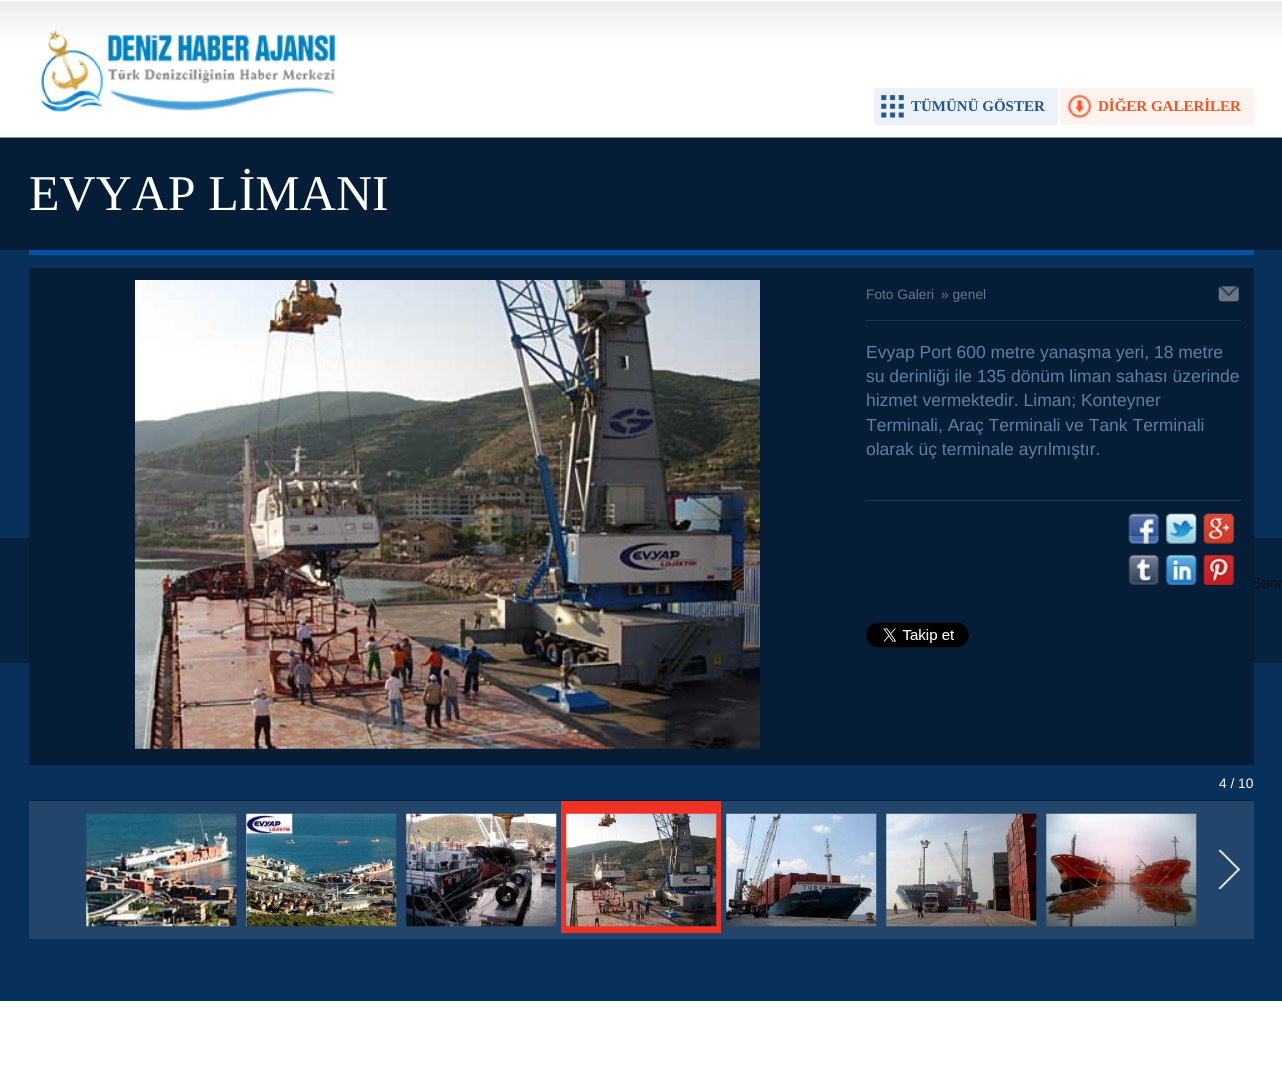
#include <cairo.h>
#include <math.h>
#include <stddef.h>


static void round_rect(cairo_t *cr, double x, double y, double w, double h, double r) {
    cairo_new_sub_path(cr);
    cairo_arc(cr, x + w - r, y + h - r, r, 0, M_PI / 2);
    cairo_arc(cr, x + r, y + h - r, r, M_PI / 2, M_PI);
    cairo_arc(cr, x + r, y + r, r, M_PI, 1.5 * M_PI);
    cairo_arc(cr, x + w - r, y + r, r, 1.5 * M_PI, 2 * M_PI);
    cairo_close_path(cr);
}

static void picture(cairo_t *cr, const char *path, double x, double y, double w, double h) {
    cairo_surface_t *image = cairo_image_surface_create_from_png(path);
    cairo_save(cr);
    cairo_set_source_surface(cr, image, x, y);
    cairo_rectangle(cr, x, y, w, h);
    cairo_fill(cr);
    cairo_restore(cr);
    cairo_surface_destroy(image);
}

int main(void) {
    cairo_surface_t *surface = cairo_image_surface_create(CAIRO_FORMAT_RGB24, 1282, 1073);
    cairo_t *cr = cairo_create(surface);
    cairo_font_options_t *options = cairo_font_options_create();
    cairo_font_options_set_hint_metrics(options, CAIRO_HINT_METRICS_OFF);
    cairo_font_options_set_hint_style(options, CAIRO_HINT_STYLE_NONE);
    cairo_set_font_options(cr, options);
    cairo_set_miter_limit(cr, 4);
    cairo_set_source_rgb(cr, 1, 1, 1);
    cairo_paint(cr);
    cairo_set_source_rgb(cr, 0.031, 0.188, 0.353);
    cairo_rectangle(cr, 0, 250, 1282, 751);
    cairo_fill(cr);
    picture(cr, "img1.png", 0, 0, 1282, 250);
    cairo_set_source_rgb(cr, 0.024, 0.133, 0.247);
    cairo_rectangle(cr, 0, 538, 29, 125);
    cairo_fill(cr);
    picture(cr, "img2.png", 40, 30, 296, 82);
    cairo_set_source_rgb(cr, 0.929, 0.949, 0.969);
    round_rect(cr, 874, 88, 184, 37, 2.5);
    cairo_fill(cr);
    picture(cr, "img3.png", 881, 94, 23, 24);
    cairo_select_font_face(cr, "Liberation Serif", CAIRO_FONT_SLANT_NORMAL, CAIRO_FONT_WEIGHT_BOLD);
    cairo_set_font_size(cr, 15);
    cairo_set_source_rgb(cr, 0.129, 0.337, 0.557);
    cairo_move_to(cr, 911, 111);
    cairo_show_text(cr, "TÜMÜNÜ GÖSTER");
    cairo_set_source_rgb(cr, 1, 0.953, 0.937);
    round_rect(cr, 1060, 88, 194, 37, 2.5);
    cairo_fill(cr);
    picture(cr, "img4.png", 1067, 93, 25, 26);
    cairo_set_source_rgb(cr, 0.992, 0.31, 0.125);
    cairo_move_to(cr, 1098, 111);
    cairo_show_text(cr, "DİĞER GALERİLER");
    cairo_set_source_rgb(cr, 0, 0.322, 0.659);
    cairo_rectangle(cr, 29, 250, 1225, 5);
    cairo_fill(cr);
    cairo_select_font_face(cr, "Liberation Serif", CAIRO_FONT_SLANT_NORMAL, CAIRO_FONT_WEIGHT_NORMAL);
    cairo_set_font_size(cr, 50);
    cairo_set_source_rgb(cr, 1, 1, 1);
    cairo_move_to(cr, 29, 210);
    cairo_show_text(cr, "EVYAP LİMANI");
    cairo_set_source_rgb(cr, 0.024, 0.133, 0.247);
    cairo_rectangle(cr, 1254, 538, 28, 125);
    cairo_fill(cr);
    cairo_select_font_face(cr, "Liberation Sans", CAIRO_FONT_SLANT_NORMAL, CAIRO_FONT_WEIGHT_NORMAL);
    cairo_set_font_size(cr, 15);
    cairo_set_source_rgb(cr, 0.059, 0.059, 0.059);
    cairo_move_to(cr, 1251, 588);
    cairo_show_text(cr, "Sonr");
    cairo_set_source_rgb(cr, 0.02, 0.114, 0.212);
    cairo_rectangle(cr, 29, 268, 1225, 497);
    cairo_fill(cr);
    picture(cr, "img5.png", 135, 280, 625, 469);
    cairo_set_font_size(cr, 13.75);
    cairo_set_source_rgb(cr, 0.412, 0.467, 0.525);
    cairo_move_to(cr, 866, 299);
    cairo_show_text(cr, "Foto Galeri");
    cairo_move_to(cr, 941, 299);
    cairo_show_text(cr, "» genel");
    picture(cr, "img6.png", 1218, 286, 21, 17);
    cairo_set_source_rgb(cr, 0.118, 0.204, 0.29);
    cairo_rectangle(cr, 866, 320, 375, 1);
    cairo_fill(cr);
    cairo_rectangle(cr, 866, 500, 375, 1);
    cairo_fill(cr);
    cairo_set_font_size(cr, 17.5);
    cairo_set_source_rgb(cr, 0.365, 0.502, 0.643);
    cairo_move_to(cr, 866, 358);
    cairo_show_text(cr, "Evyap Port 600 metre yanaşma yeri, 18 metre");
    cairo_move_to(cr, 866, 382);
    cairo_show_text(cr, "su derinliği ile 135 dönüm liman sahası üzerinde");
    cairo_move_to(cr, 866, 406);
    cairo_show_text(cr, "hizmet vermektedir. Liman; Konteyner");
    cairo_move_to(cr, 866, 431);
    cairo_show_text(cr, "Terminali, Araç Terminali ve Tank Terminali");
    cairo_move_to(cr, 866, 455);
    cairo_show_text(cr, "olarak üç terminale ayrılmıştır.");
    picture(cr, "img7.png", 1128, 513, 31, 31);
    picture(cr, "img8.png", 1166, 513, 31, 31);
    picture(cr, "img9.png", 1203, 513, 31, 31);
    picture(cr, "img10.png", 1128, 555, 31, 30);
    picture(cr, "img11.png", 1166, 555, 31, 30);
    picture(cr, "img12.png", 1203, 555, 31, 30);
    picture(cr, "img13.png", 866, 622, 103, 26);
    cairo_set_font_size(cr, 13.75);
    cairo_set_source_rgb(cr, 1, 1, 1);
    cairo_move_to(cr, 1219, 788);
    cairo_show_text(cr, "4 / 10");
    cairo_set_source_rgb(cr, 0.129, 0.271, 0.42);
    cairo_rectangle(cr, 29, 801, 1225, 138);
    cairo_fill(cr);
    cairo_set_source_rgb(cr, 0.02, 0.114, 0.212);
    cairo_rectangle(cr, 29, 800, 1225, 1);
    cairo_fill(cr);
    picture(cr, "img14.png", 86, 813, 151, 114);
    picture(cr, "img15.png", 246, 813, 151, 114);
    picture(cr, "img16.png", 406, 813, 151, 114);
    cairo_set_source_rgb(cr, 0.933, 0.196, 0.141);
    cairo_rectangle(cr, 561, 801, 160, 132);
    cairo_fill(cr);
    picture(cr, "img17.png", 566, 813, 151, 114);
    picture(cr, "img18.png", 726, 813, 151, 114);
    picture(cr, "img19.png", 886, 813, 151, 114);
    picture(cr, "img20.png", 1046, 813, 151, 114);
    picture(cr, "img21.png", 1218, 849, 22, 40);
    cairo_surface_write_to_png(surface, "page.png");
    cairo_font_options_destroy(options);
    cairo_destroy(cr);
    cairo_surface_destroy(surface);
    return 0;
}
